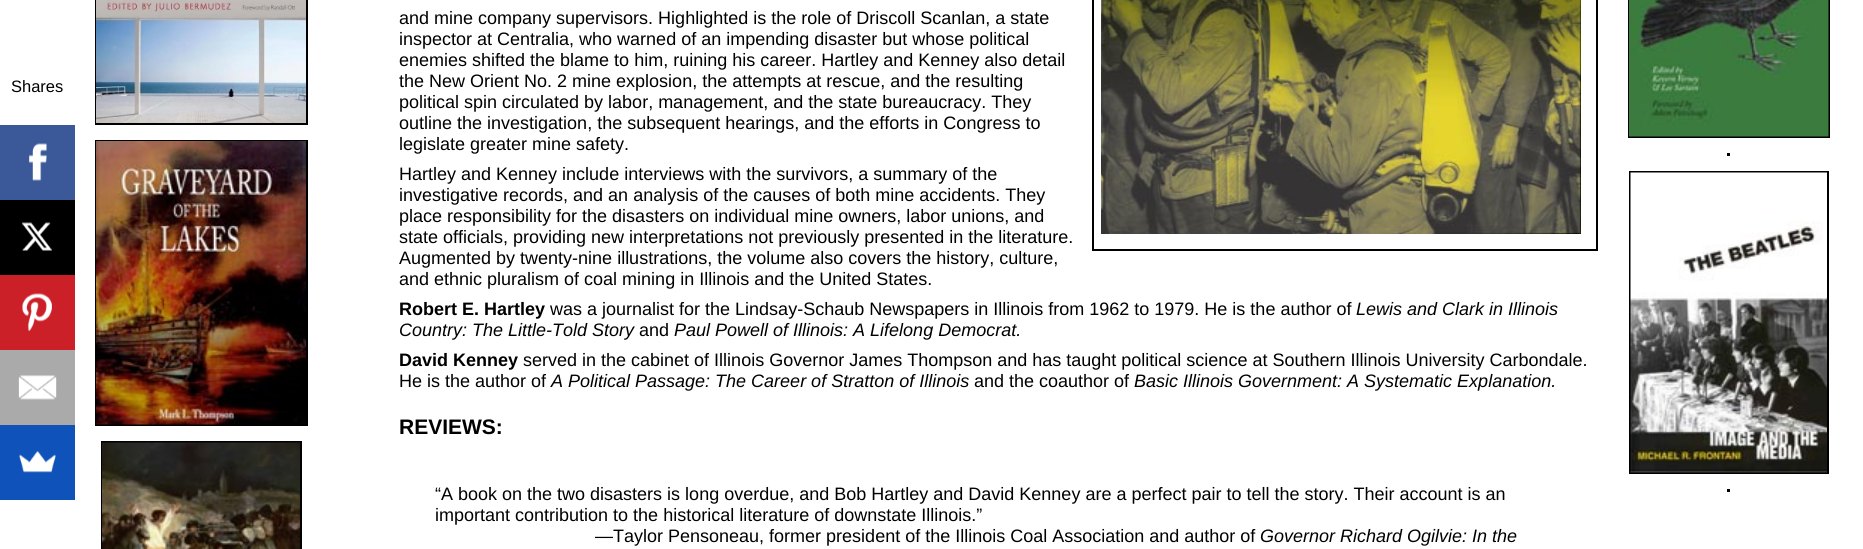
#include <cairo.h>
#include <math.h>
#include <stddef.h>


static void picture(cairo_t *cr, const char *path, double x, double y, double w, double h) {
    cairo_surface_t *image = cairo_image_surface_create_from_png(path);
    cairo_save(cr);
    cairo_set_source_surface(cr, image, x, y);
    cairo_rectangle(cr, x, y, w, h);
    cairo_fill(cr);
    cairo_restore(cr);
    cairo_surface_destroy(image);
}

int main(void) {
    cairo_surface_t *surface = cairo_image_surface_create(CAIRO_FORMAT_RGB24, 1863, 549);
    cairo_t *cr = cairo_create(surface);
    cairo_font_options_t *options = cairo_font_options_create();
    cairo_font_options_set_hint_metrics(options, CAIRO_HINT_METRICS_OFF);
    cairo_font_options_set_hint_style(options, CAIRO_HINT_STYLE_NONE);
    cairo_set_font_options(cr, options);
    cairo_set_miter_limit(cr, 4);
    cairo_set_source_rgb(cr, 1, 1, 1);
    cairo_paint(cr);
    cairo_select_font_face(cr, "Liberation Sans", CAIRO_FONT_SLANT_NORMAL, CAIRO_FONT_WEIGHT_NORMAL);
    cairo_set_font_size(cr, 16.5);
    cairo_set_source_rgb(cr, 0, 0, 0);
    cairo_move_to(cr, 11, 92);
    cairo_show_text(cr, "Shares");
    cairo_set_source_rgb(cr, 0.231, 0.349, 0.596);
    cairo_rectangle(cr, 0, 125, 75, 75);
    cairo_fill(cr);
    picture(cr, "img1.png", 29, 143, 18, 38);
    cairo_set_source_rgb(cr, 0, 0, 0);
    cairo_rectangle(cr, 0, 200, 75, 75);
    cairo_fill(cr);
    picture(cr, "img2.png", 21, 222, 31, 29);
    cairo_set_source_rgb(cr, 0.796, 0.125, 0.153);
    cairo_rectangle(cr, 0, 275, 75, 75);
    cairo_fill(cr);
    picture(cr, "img3.png", 22, 293, 30, 39);
    cairo_set_source_rgb(cr, 0.667, 0.667, 0.667);
    cairo_rectangle(cr, 0, 350, 75, 75);
    cairo_fill(cr);
    picture(cr, "img4.png", 18, 375, 39, 25);
    cairo_set_source_rgb(cr, 0.059, 0.322, 0.729);
    cairo_rectangle(cr, 0, 425, 75, 75);
    cairo_fill(cr);
    picture(cr, "img5.png", 19, 451, 37, 22);
    cairo_rectangle(cr, 96, -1, 211, 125);
    cairo_set_source_rgb(cr, 0, 0, 0);
    cairo_stroke(cr);
    picture(cr, "img6.png", 96, 0, 210, 123);
    cairo_rectangle(cr, 96, 141, 211, 284);
    cairo_stroke(cr);
    picture(cr, "img7.png", 96, 141, 210, 284);
    cairo_rectangle(cr, 102, 442, 199, 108);
    cairo_stroke(cr);
    picture(cr, "img8.png", 102, 442, 198, 107);
    cairo_rectangle(cr, 1629, -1, 200, 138);
    cairo_stroke(cr);
    picture(cr, "img9.png", 1629, 0, 200, 137);
    cairo_rectangle(cr, 1727, 153, 3, 3);
    cairo_fill(cr);
    cairo_rectangle(cr, 1630, 172, 198, 301);
    cairo_stroke(cr);
    picture(cr, "img10.png", 1630, 172, 197, 301);
    cairo_rectangle(cr, 1727, 489, 3, 3);
    cairo_fill(cr);
    cairo_set_font_size(cr, 18);
    cairo_move_to(cr, 399, 24);
    cairo_show_text(cr, "and mine company supervisors. Highlighted is the role of Driscoll Scanlan, a state");
    cairo_move_to(cr, 399, 45);
    cairo_show_text(cr, "inspector at Centralia, who warned of an impending disaster but whose political");
    cairo_move_to(cr, 399, 66);
    cairo_show_text(cr, "enemies shifted the blame to him, ruining his career. Hartley and Kenney also detail");
    cairo_move_to(cr, 399, 87);
    cairo_show_text(cr, "the New Orient No. 2 mine explosion, the attempts at rescue, and the resulting");
    cairo_move_to(cr, 399, 108);
    cairo_show_text(cr, "political spin circulated by labor, management, and the state bureaucracy. They");
    cairo_move_to(cr, 399, 129);
    cairo_show_text(cr, "outline the investigation, the subsequent hearings, and the efforts in Congress to");
    cairo_move_to(cr, 399, 150);
    cairo_show_text(cr, "legislate greater mine safety.");
    cairo_rectangle(cr, 1093, -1, 504, 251);
    cairo_stroke(cr);
    picture(cr, "img11.png", 1101, 0, 480, 234);
    cairo_move_to(cr, 399, 180);
    cairo_show_text(cr, "Hartley and Kenney include interviews with the survivors, a summary of the");
    cairo_move_to(cr, 399, 201);
    cairo_show_text(cr, "investigative records, and an analysis of the causes of both mine accidents. They");
    cairo_move_to(cr, 399, 222);
    cairo_show_text(cr, "place responsibility for the disasters on individual mine owners, labor unions, and");
    cairo_move_to(cr, 399, 243);
    cairo_show_text(cr, "state officials, providing new interpretations not previously presented in the literature.");
    cairo_move_to(cr, 399, 264);
    cairo_show_text(cr, "Augmented by twenty-nine illustrations, the volume also covers the history, culture,");
    cairo_move_to(cr, 399, 285);
    cairo_show_text(cr, "and ethnic pluralism of coal mining in Illinois and the United States.");
    cairo_select_font_face(cr, "Liberation Sans", CAIRO_FONT_SLANT_NORMAL, CAIRO_FONT_WEIGHT_BOLD);
    cairo_move_to(cr, 399, 315);
    cairo_show_text(cr, "Robert E. Hartley");
    cairo_select_font_face(cr, "Liberation Sans", CAIRO_FONT_SLANT_NORMAL, CAIRO_FONT_WEIGHT_NORMAL);
    cairo_move_to(cr, 550, 315);
    cairo_show_text(cr, "was a journalist for the Lindsay-Schaub Newspapers in Illinois from 1962 to 1979. He is the author of");
    cairo_select_font_face(cr, "Liberation Sans", CAIRO_FONT_SLANT_ITALIC, CAIRO_FONT_WEIGHT_NORMAL);
    cairo_move_to(cr, 1356, 315);
    cairo_show_text(cr, "Lewis and Clark in Illinois");
    cairo_move_to(cr, 399, 336);
    cairo_show_text(cr, "Country: The Little-Told Story");
    cairo_select_font_face(cr, "Liberation Sans", CAIRO_FONT_SLANT_NORMAL, CAIRO_FONT_WEIGHT_NORMAL);
    cairo_move_to(cr, 639, 336);
    cairo_show_text(cr, "and");
    cairo_select_font_face(cr, "Liberation Sans", CAIRO_FONT_SLANT_ITALIC, CAIRO_FONT_WEIGHT_NORMAL);
    cairo_move_to(cr, 674, 336);
    cairo_show_text(cr, "Paul Powell of Illinois: A Lifelong Democrat.");
    cairo_select_font_face(cr, "Liberation Sans", CAIRO_FONT_SLANT_NORMAL, CAIRO_FONT_WEIGHT_BOLD);
    cairo_move_to(cr, 399, 366);
    cairo_show_text(cr, "David Kenney");
    cairo_select_font_face(cr, "Liberation Sans", CAIRO_FONT_SLANT_NORMAL, CAIRO_FONT_WEIGHT_NORMAL);
    cairo_move_to(cr, 523, 366);
    cairo_show_text(cr, "served in the cabinet of Illinois Governor James Thompson and has taught political science at Southern Illinois University Carbondale.");
    cairo_move_to(cr, 399, 387);
    cairo_show_text(cr, "He is the author of");
    cairo_select_font_face(cr, "Liberation Sans", CAIRO_FONT_SLANT_ITALIC, CAIRO_FONT_WEIGHT_NORMAL);
    cairo_move_to(cr, 551, 387);
    cairo_show_text(cr, "A Political Passage: The Career of Stratton of Illinois");
    cairo_select_font_face(cr, "Liberation Sans", CAIRO_FONT_SLANT_NORMAL, CAIRO_FONT_WEIGHT_NORMAL);
    cairo_move_to(cr, 974, 387);
    cairo_show_text(cr, "and the coauthor of");
    cairo_select_font_face(cr, "Liberation Sans", CAIRO_FONT_SLANT_ITALIC, CAIRO_FONT_WEIGHT_NORMAL);
    cairo_move_to(cr, 1134, 387);
    cairo_show_text(cr, "Basic Illinois Government: A Systematic Explanation.");
    cairo_select_font_face(cr, "Liberation Sans", CAIRO_FONT_SLANT_NORMAL, CAIRO_FONT_WEIGHT_BOLD);
    cairo_set_font_size(cr, 21);
    cairo_move_to(cr, 399, 434);
    cairo_show_text(cr, "REVIEWS:");
    cairo_select_font_face(cr, "Liberation Sans", CAIRO_FONT_SLANT_NORMAL, CAIRO_FONT_WEIGHT_NORMAL);
    cairo_set_font_size(cr, 18);
    cairo_move_to(cr, 435, 500);
    cairo_show_text(cr, "“A book on the two disasters is long overdue, and Bob Hartley and David Kenney are a perfect pair to tell the story. Their account is an");
    cairo_move_to(cr, 435, 521);
    cairo_show_text(cr, "important contribution to the historical literature of downstate Illinois.”");
    cairo_move_to(cr, 595, 542);
    cairo_show_text(cr, "—Taylor Pensoneau, former president of the Illinois Coal Association and author of");
    cairo_select_font_face(cr, "Liberation Sans", CAIRO_FONT_SLANT_ITALIC, CAIRO_FONT_WEIGHT_NORMAL);
    cairo_move_to(cr, 1260, 542);
    cairo_show_text(cr, "Governor Richard Ogilvie: In the");
    cairo_surface_write_to_png(surface, "page.png");
    cairo_font_options_destroy(options);
    cairo_destroy(cr);
    cairo_surface_destroy(surface);
    return 0;
}
